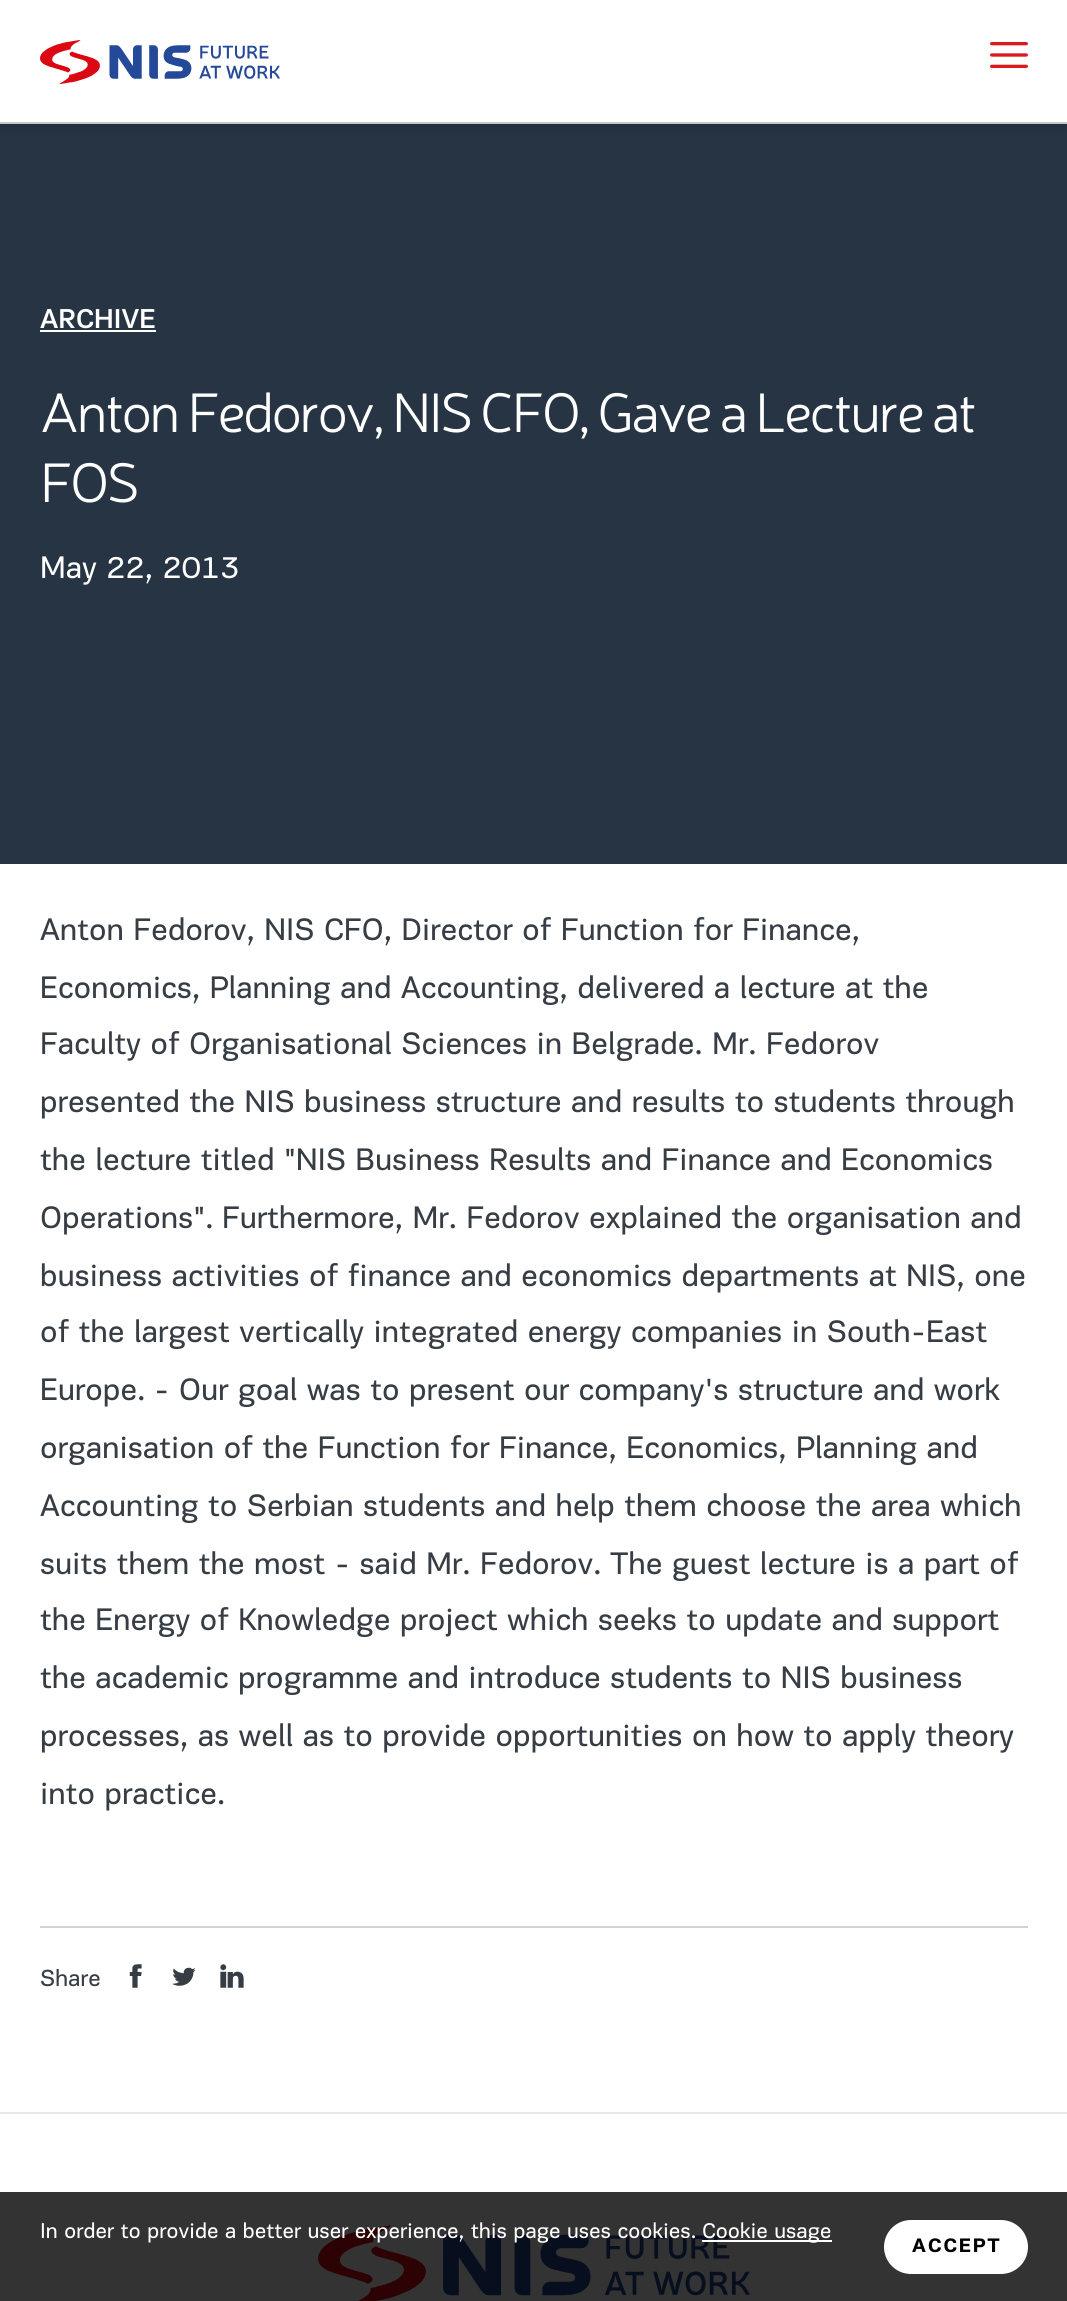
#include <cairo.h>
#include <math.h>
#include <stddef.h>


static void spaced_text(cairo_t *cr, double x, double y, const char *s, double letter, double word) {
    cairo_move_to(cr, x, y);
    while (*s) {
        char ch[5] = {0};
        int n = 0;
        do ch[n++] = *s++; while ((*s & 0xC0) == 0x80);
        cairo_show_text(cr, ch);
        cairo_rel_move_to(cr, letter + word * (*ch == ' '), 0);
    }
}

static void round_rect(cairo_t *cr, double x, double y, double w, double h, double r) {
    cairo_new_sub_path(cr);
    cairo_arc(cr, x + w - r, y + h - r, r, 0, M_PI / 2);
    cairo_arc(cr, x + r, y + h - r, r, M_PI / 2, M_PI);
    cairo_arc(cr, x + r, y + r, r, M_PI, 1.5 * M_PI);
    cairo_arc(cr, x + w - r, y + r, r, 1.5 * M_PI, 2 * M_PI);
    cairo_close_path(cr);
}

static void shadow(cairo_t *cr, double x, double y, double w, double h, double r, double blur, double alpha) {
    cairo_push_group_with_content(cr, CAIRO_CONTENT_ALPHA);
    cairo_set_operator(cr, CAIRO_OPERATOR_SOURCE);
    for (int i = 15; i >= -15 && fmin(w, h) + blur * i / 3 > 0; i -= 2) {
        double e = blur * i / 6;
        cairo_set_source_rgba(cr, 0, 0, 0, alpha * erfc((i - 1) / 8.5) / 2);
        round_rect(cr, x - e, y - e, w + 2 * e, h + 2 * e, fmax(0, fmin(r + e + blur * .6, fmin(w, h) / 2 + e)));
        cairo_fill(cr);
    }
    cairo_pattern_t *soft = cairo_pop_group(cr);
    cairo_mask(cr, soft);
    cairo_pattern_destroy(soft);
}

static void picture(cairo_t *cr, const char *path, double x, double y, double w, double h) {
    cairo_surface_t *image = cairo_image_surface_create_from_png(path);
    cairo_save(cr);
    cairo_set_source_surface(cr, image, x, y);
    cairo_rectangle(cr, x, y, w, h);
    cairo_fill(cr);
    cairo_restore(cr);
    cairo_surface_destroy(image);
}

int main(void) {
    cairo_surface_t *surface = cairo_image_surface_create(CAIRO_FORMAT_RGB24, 1067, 2301);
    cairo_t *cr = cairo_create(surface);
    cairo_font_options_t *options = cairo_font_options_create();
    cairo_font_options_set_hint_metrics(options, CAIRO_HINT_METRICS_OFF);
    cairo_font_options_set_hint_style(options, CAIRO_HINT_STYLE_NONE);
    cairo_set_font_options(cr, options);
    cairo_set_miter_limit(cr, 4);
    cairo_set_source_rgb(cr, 1, 1, 1);
    cairo_paint(cr);
    cairo_set_source_rgb(cr, 0.2, 0.2, 0.2);
    cairo_rectangle(cr, 0, 2192, 1067, 109);
    cairo_fill(cr);
    cairo_set_source_rgb(cr, 0.153, 0.204, 0.267);
    cairo_rectangle(cr, 0, 124, 1067, 740);
    cairo_fill(cr);
    cairo_set_source_rgb(cr, 0, 0, 0);
    shadow(cr, -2, 0, 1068, 124, 0, 6, 0.22);
    cairo_set_source_rgb(cr, 1, 1, 1);
    cairo_rectangle(cr, 0, 0, 1067, 122);
    cairo_fill(cr);
    cairo_set_source_rgb(cr, 0.78, 0.78, 0.78);
    cairo_rectangle(cr, 0, 122, 1067, 2);
    cairo_fill(cr);
    picture(cr, "img1.png", 40, 40, 240, 44);
    picture(cr, "img2.png", 990, 42, 38, 26);
    picture(cr, "img3.png", 40, 308, 115, 21);
    cairo_set_source_rgb(cr, 1, 1, 1);
    cairo_rectangle(cr, 40, 330, 116, 2);
    cairo_fill(cr);
    cairo_select_font_face(cr, "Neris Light", CAIRO_FONT_SLANT_NORMAL, CAIRO_FONT_WEIGHT_NORMAL);
    cairo_set_font_size(cr, 56);
    spaced_text(cr, 40, 432, "Anton Fedorov, NIS CFO, Gave a Lecture at", -2.5, 0);
    spaced_text(cr, 40, 502, "FOS", -2.5, 0);
    picture(cr, "img4.png", 42, 556, 196, 29);
    picture(cr, "img5.png", 40, 917, 818, 29);
    picture(cr, "img6.png", 42, 975, 885, 30);
    picture(cr, "img7.png", 42, 1031, 837, 30);
    picture(cr, "img8.png", 41, 1089, 972, 30);
    picture(cr, "img9.png", 40, 1147, 952, 24);
    picture(cr, "img10.png", 41, 1206, 171, 29);
    picture(cr, "img11.png", 224, 1205, 796, 30);
    picture(cr, "img12.png", 41, 1263, 984, 30);
    picture(cr, "img13.png", 41, 1319, 946, 30);
    picture(cr, "img14.png", 42, 1378, 102, 29);
    picture(cr, "img15.png", 157, 1377, 843, 30);
    picture(cr, "img16.png", 41, 1435, 935, 30);
    picture(cr, "img17.png", 40, 1493, 980, 30);
    picture(cr, "img18.png", 41, 1551, 559, 24);
    picture(cr, "img19.png", 610, 1551, 408, 30);
    picture(cr, "img20.png", 40, 1607, 959, 30);
    picture(cr, "img21.png", 40, 1665, 922, 30);
    picture(cr, "img22.png", 41, 1723, 973, 30);
    picture(cr, "img23.png", 42, 1782, 182, 29);
    cairo_set_source_rgb(cr, 0.827, 0.827, 0.827);
    cairo_rectangle(cr, 40, 1926, 988, 2);
    cairo_fill(cr);
    picture(cr, "img24.png", 41, 1968, 59, 19);
    picture(cr, "img25.png", 129, 1964, 13, 24);
    picture(cr, "img26.png", 172, 1967, 24, 19);
    picture(cr, "img27.png", 220, 1964, 24, 24);
    cairo_set_source_rgb(cr, 0.898, 0.906, 0.914);
    cairo_rectangle(cr, 0, 2112, 1067, 2);
    cairo_fill(cr);
    picture(cr, "img28.png", 318, 2225, 432, 76);
    picture(cr, "img29.png", 41, 2222, 654, 21);
    cairo_set_source_rgb(cr, 1, 1, 1);
    cairo_rectangle(cr, 702, 2240, 130, 2);
    cairo_fill(cr);
    picture(cr, "img30.png", 703, 2222, 128, 21);
    round_rect(cr, 884, 2220, 144, 54, 27);
    cairo_fill(cr);
    picture(cr, "img31.png", 912, 2238, 88, 15);
    cairo_surface_write_to_png(surface, "page.png");
    cairo_font_options_destroy(options);
    cairo_destroy(cr);
    cairo_surface_destroy(surface);
    return 0;
}
